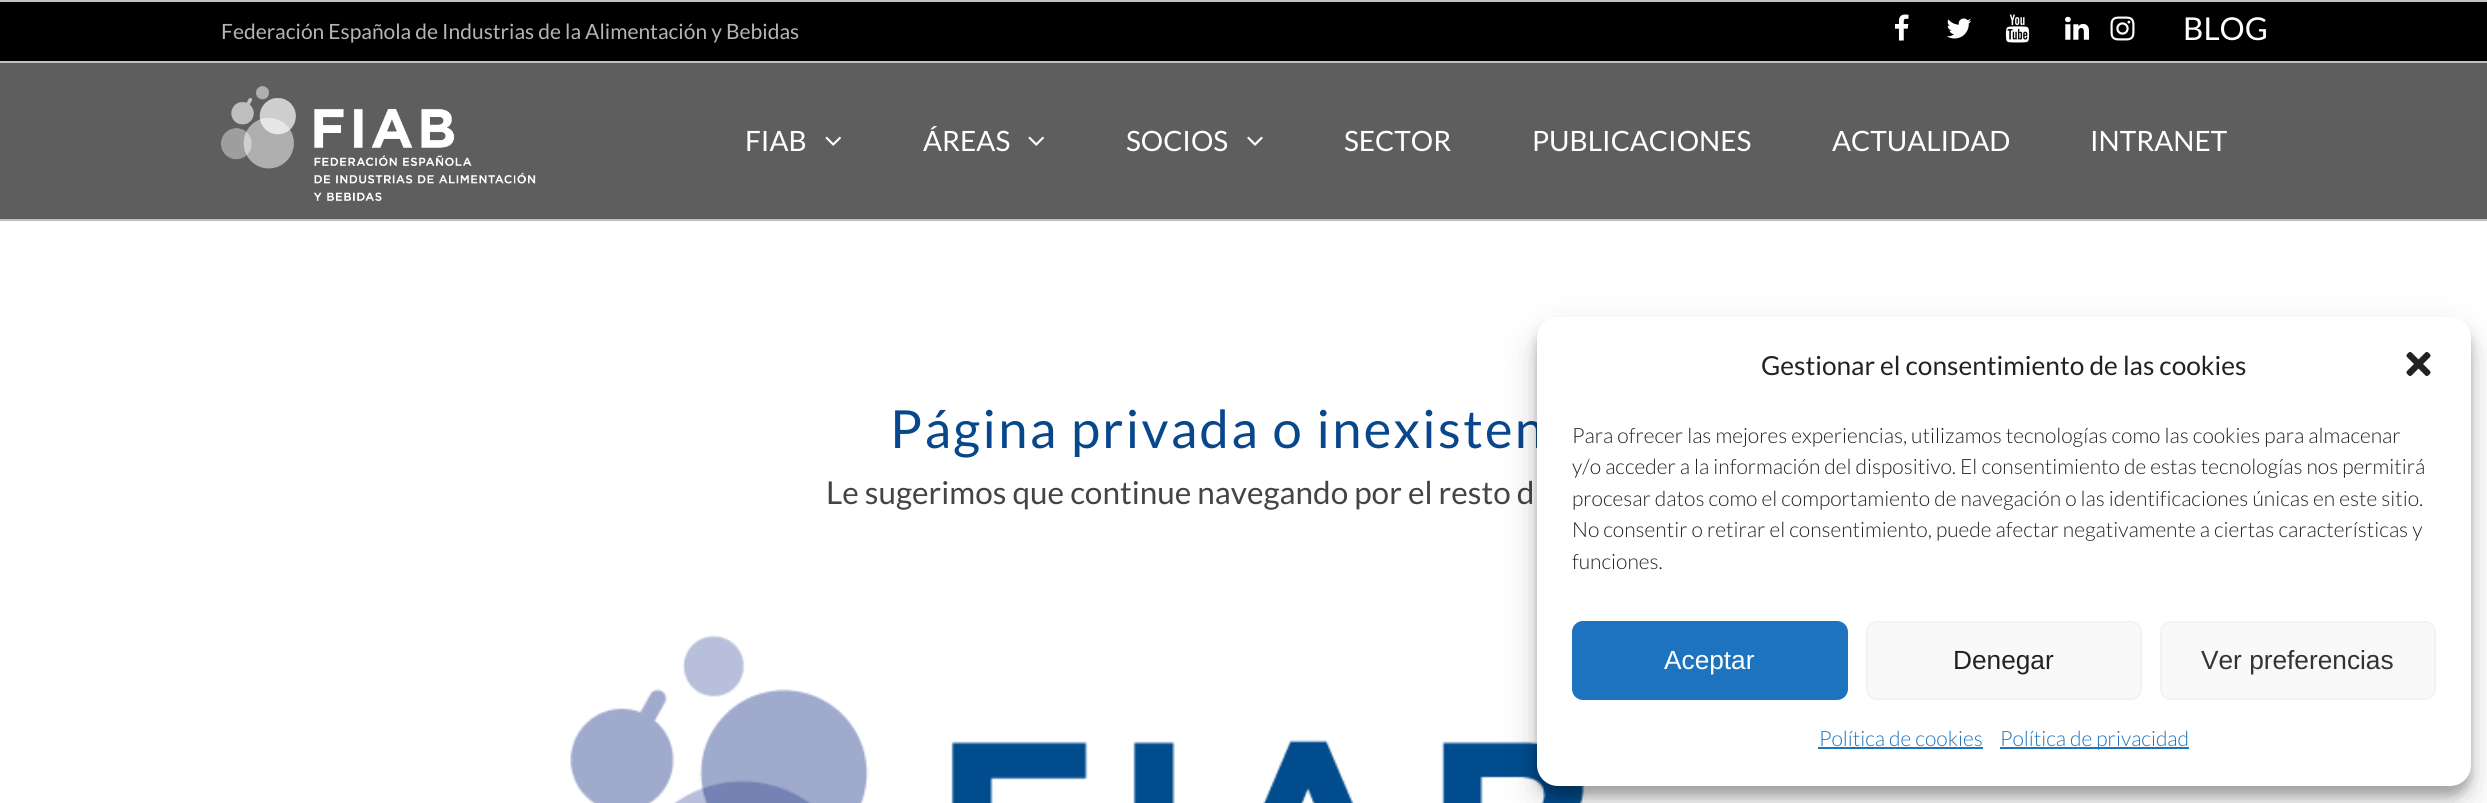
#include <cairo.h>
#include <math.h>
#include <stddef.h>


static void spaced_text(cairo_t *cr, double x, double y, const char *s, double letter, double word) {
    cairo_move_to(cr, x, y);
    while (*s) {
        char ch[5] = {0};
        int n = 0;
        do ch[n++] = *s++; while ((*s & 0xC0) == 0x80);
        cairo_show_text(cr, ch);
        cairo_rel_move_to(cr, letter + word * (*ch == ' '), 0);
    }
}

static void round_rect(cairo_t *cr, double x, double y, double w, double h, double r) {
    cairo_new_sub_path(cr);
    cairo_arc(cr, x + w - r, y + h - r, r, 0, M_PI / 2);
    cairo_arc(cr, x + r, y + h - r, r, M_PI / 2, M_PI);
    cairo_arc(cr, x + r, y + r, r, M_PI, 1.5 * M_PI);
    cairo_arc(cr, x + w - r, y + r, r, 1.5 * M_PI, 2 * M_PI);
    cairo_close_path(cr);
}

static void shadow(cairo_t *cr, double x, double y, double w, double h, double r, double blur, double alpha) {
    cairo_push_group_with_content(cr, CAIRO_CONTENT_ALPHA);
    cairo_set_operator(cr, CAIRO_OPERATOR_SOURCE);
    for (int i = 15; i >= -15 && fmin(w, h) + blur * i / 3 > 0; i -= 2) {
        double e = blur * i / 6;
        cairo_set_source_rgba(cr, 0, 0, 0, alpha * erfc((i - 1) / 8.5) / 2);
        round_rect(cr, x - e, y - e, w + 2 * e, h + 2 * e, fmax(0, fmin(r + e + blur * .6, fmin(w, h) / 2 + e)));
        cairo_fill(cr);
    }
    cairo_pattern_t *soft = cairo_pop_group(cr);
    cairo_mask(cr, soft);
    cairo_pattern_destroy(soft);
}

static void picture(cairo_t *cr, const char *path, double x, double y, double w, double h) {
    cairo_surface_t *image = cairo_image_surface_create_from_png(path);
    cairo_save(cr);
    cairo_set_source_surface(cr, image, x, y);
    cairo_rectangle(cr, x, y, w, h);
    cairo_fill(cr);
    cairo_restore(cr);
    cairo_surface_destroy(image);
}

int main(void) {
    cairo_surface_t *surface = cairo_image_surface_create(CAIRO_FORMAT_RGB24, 2487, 803);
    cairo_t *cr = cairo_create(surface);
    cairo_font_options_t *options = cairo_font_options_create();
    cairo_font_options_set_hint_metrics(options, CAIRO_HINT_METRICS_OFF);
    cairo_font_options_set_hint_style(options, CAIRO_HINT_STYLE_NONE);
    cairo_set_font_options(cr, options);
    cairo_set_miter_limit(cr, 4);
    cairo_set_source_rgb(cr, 1, 1, 1);
    cairo_paint(cr);
    cairo_set_source_rgb(cr, 0, 0, 0);
    cairo_rectangle(cr, 0, 2, 2487, 59);
    cairo_fill(cr);
    cairo_set_source_rgb(cr, 0.757, 0.757, 0.757);
    cairo_rectangle(cr, 0, 0, 2487, 2);
    cairo_fill(cr);
    cairo_select_font_face(cr, "Lato", CAIRO_FONT_SLANT_NORMAL, CAIRO_FONT_WEIGHT_NORMAL);
    cairo_set_font_size(cr, 21);
    cairo_set_source_rgb(cr, 0.706, 0.706, 0.706);
    cairo_move_to(cr, 221, 39);
    cairo_show_text(cr, "Federación Española de Industrias de la Alimentación y Bebidas");
    picture(cr, "img1.png", 1895, 14, 14, 27);
    picture(cr, "img2.png", 1947, 18, 25, 21);
    picture(cr, "img3.png", 2005, 14, 25, 29);
    picture(cr, "img4.png", 2065, 16, 24, 24);
    picture(cr, "img5.png", 2110, 16, 25, 25);
    cairo_set_font_size(cr, 31.5);
    cairo_set_source_rgb(cr, 1, 1, 1);
    cairo_move_to(cr, 2183, 40);
    cairo_show_text(cr, "BLOG");
    cairo_set_source_rgba(cr, 0, 0, 0, 0.63);
    cairo_rectangle(cr, 0, 63, 2487, 156);
    cairo_fill(cr);
    cairo_set_source_rgb(cr, 0.757, 0.757, 0.757);
    cairo_rectangle(cr, 0, 61, 2487, 2);
    cairo_fill(cr);
    cairo_rectangle(cr, 0, 219, 2487, 2);
    cairo_fill(cr);
    picture(cr, "img6.png", 220, 85, 316, 117);
    cairo_set_font_size(cr, 28);
    cairo_set_source_rgb(cr, 1, 1, 1);
    cairo_move_to(cr, 745, 151);
    cairo_show_text(cr, "FIAB");
    picture(cr, "img7.png", 825, 136, 16, 10);
    cairo_move_to(cr, 923, 151);
    cairo_show_text(cr, "ÁREAS");
    picture(cr, "img7.png", 1028, 136, 16, 10);
    cairo_move_to(cr, 1126, 151);
    cairo_show_text(cr, "SOCIOS");
    picture(cr, "img8.png", 1247, 136, 16, 10);
    cairo_move_to(cr, 1344, 151);
    cairo_show_text(cr, "SECTOR");
    cairo_move_to(cr, 1532, 151);
    cairo_show_text(cr, "PUBLICACIONES");
    cairo_move_to(cr, 1832, 151);
    cairo_show_text(cr, "ACTUALIDAD");
    cairo_move_to(cr, 2090, 151);
    cairo_show_text(cr, "INTRANET");
    cairo_set_font_size(cr, 52.5);
    cairo_set_source_rgb(cr, 0.039, 0.278, 0.549);
    spaced_text(cr, 890, 448, "Página privada o inexisten", 2.3, 0);
    cairo_set_font_size(cr, 31.5);
    cairo_set_source_rgb(cr, 0.267, 0.267, 0.267);
    cairo_move_to(cr, 826, 504);
    cairo_show_text(cr, "Le sugerimos que continue navegando por el resto d");
    picture(cr, "img9.png", 570, 635, 1015, 168);
    cairo_set_source_rgb(cr, 0, 0, 0);
    shadow(cr, 1537, 327, 934, 469, 21, 5, 0.23);
    shadow(cr, 1537, 334, 934, 469, 21, 17.5, 0.19);
    cairo_set_source_rgb(cr, 1, 1, 1);
    round_rect(cr, 1537, 317, 934, 469, 21);
    cairo_fill(cr);
    cairo_set_font_size(cr, 26.25);
    cairo_set_source_rgb(cr, 0.133, 0.133, 0.133);
    cairo_move_to(cr, 1761, 375);
    cairo_show_text(cr, "Gestionar el consentimiento de las cookies");
    picture(cr, "img10.png", 2406, 352, 25, 24);
    cairo_select_font_face(cr, "Lato Light", CAIRO_FONT_SLANT_NORMAL, CAIRO_FONT_WEIGHT_NORMAL);
    cairo_set_font_size(cr, 21);
    cairo_move_to(cr, 1572, 443);
    cairo_show_text(cr, "Para ofrecer las mejores experiencias, utilizamos tecnologías como las cookies para almacenar");
    cairo_move_to(cr, 1572, 474);
    cairo_show_text(cr, "y/o acceder a la información del dispositivo. El consentimiento de estas tecnologías nos permitirá");
    cairo_move_to(cr, 1572, 506);
    cairo_show_text(cr, "procesar datos como el comportamiento de navegación o las identificaciones únicas en este sitio.");
    cairo_move_to(cr, 1572, 537);
    cairo_show_text(cr, "No consentir o retirar el consentimiento, puede afectar negativamente a ciertas características y");
    cairo_move_to(cr, 1572, 569);
    cairo_show_text(cr, "funciones.");
    cairo_set_source_rgb(cr, 0.118, 0.451, 0.745);
    round_rect(cr, 1573, 622, 274, 77, 10);
    cairo_fill_preserve(cr);
    cairo_stroke(cr);
    cairo_select_font_face(cr, "Liberation Sans", CAIRO_FONT_SLANT_NORMAL, CAIRO_FONT_WEIGHT_NORMAL);
    cairo_set_font_size(cr, 26.25);
    cairo_set_source_rgb(cr, 1, 1, 1);
    cairo_move_to(cr, 1664, 669);
    cairo_show_text(cr, "Aceptar");
    cairo_set_source_rgb(cr, 0.976, 0.976, 0.976);
    round_rect(cr, 1867, 622, 274, 77, 10);
    cairo_fill_preserve(cr);
    cairo_set_source_rgb(cr, 0.949, 0.949, 0.949);
    cairo_stroke(cr);
    cairo_set_source_rgb(cr, 0.133, 0.133, 0.133);
    cairo_move_to(cr, 1953, 669);
    cairo_show_text(cr, "Denegar");
    cairo_set_source_rgb(cr, 0.976, 0.976, 0.976);
    round_rect(cr, 2161, 622, 274, 77, 10);
    cairo_fill_preserve(cr);
    cairo_set_source_rgb(cr, 0.949, 0.949, 0.949);
    cairo_stroke(cr);
    cairo_set_source_rgb(cr, 0.2, 0.2, 0.2);
    cairo_move_to(cr, 2201, 669);
    cairo_show_text(cr, "Ver preferencias");
    cairo_select_font_face(cr, "Lato Light", CAIRO_FONT_SLANT_NORMAL, CAIRO_FONT_WEIGHT_NORMAL);
    cairo_set_font_size(cr, 21);
    cairo_set_source_rgb(cr, 0.118, 0.451, 0.745);
    cairo_move_to(cr, 1819, 746);
    cairo_show_text(cr, "Política de cookies");
    cairo_rectangle(cr, 1818, 747, 165, 2);
    cairo_fill(cr);
    cairo_rectangle(cr, 2000, 747, 189, 2);
    cairo_fill(cr);
    cairo_move_to(cr, 2000, 746);
    cairo_show_text(cr, "Política de privacidad");
    cairo_surface_write_to_png(surface, "page.png");
    cairo_font_options_destroy(options);
    cairo_destroy(cr);
    cairo_surface_destroy(surface);
    return 0;
}
